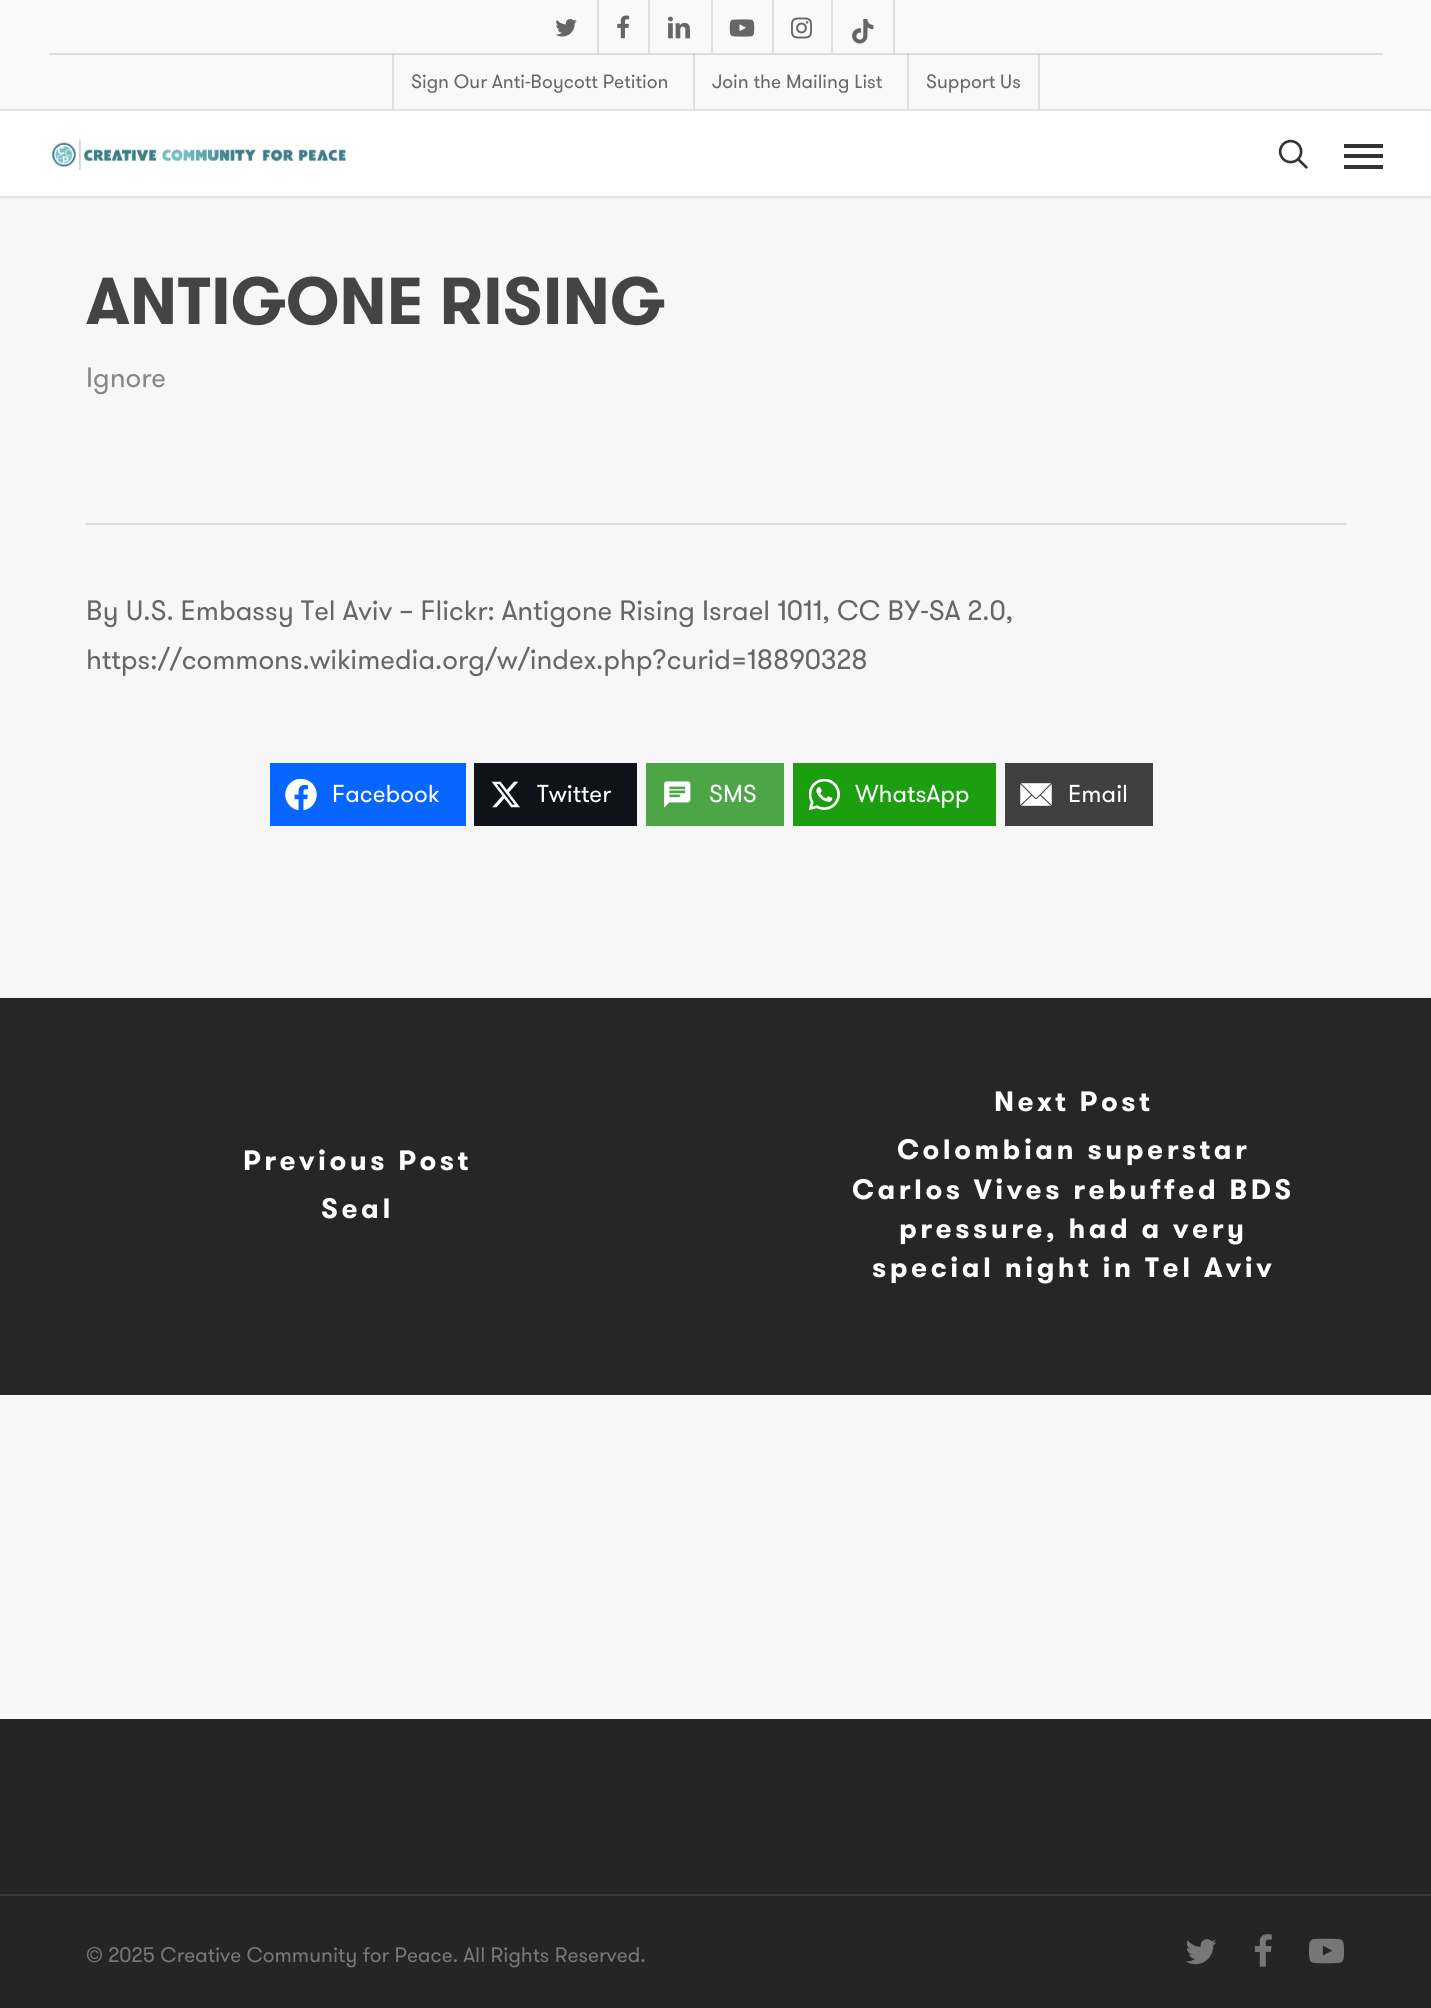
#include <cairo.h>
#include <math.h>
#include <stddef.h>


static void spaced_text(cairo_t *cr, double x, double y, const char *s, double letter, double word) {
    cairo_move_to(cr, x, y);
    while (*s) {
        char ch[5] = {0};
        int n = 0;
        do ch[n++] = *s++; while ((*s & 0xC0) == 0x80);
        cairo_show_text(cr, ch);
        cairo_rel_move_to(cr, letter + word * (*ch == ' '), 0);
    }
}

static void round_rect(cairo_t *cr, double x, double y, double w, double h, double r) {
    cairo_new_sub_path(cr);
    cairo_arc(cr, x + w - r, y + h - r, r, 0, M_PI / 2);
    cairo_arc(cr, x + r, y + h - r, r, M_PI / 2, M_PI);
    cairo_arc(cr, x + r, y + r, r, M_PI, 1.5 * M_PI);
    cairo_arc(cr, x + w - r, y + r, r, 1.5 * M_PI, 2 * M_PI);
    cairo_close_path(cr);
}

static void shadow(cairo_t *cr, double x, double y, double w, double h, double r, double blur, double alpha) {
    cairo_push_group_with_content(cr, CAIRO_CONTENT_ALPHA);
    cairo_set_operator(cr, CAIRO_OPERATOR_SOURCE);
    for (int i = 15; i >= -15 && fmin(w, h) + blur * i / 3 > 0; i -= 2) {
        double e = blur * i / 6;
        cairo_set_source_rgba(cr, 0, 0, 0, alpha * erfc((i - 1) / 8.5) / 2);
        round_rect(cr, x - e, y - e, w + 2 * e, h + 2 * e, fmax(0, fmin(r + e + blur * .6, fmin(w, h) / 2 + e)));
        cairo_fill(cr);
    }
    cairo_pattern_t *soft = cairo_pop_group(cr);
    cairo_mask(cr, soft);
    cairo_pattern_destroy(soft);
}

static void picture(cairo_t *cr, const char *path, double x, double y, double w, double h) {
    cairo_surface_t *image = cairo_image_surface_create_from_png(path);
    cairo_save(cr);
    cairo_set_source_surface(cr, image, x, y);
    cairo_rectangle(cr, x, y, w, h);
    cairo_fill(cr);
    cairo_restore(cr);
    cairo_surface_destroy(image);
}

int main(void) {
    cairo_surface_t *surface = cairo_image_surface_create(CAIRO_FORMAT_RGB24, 1431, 2008);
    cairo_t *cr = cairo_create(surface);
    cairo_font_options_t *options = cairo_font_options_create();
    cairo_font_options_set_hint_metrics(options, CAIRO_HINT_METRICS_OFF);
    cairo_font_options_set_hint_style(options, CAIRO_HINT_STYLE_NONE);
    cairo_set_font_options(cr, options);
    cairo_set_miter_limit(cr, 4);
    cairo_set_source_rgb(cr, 1, 1, 1);
    cairo_paint(cr);
    cairo_set_source_rgb(cr, 0.902, 0.902, 0.902);
    cairo_rectangle(cr, 0, 110, 1431, 1);
    cairo_fill(cr);
    cairo_set_source_rgb(cr, 0.965, 0.965, 0.965);
    cairo_rectangle(cr, 0, 196, 1431, 1523);
    cairo_fill(cr);
    cairo_save(cr);
    cairo_rectangle(cr, 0, 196, 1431, 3);
    cairo_clip(cr);
    cairo_set_source_rgb(cr, 0, 0, 0);
    shadow(cr, 0, 0, 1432, 196, 0, 2.5, 0.22);
    cairo_restore(cr);
    cairo_set_source_rgb(cr, 0.973, 0.973, 0.973);
    cairo_rectangle(cr, 0, 0, 1431, 109);
    cairo_fill(cr);
    cairo_set_source_rgb(cr, 0.875, 0.875, 0.875);
    cairo_rectangle(cr, 907, 54, 2, 55);
    cairo_fill(cr);
    cairo_rectangle(cr, 1038, 54, 2, 55);
    cairo_fill(cr);
    cairo_rectangle(cr, 693, 54, 2, 55);
    cairo_fill(cr);
    cairo_rectangle(cr, 392, 54, 2, 55);
    cairo_fill(cr);
    cairo_rectangle(cr, 0, 109, 1431, 1);
    cairo_fill(cr);
    picture(cr, "img1.png", 555, 19, 22, 18);
    cairo_rectangle(cr, 597, 0, 2, 53);
    cairo_fill(cr);
    picture(cr, "img2.png", 617, 15, 13, 24);
    cairo_rectangle(cr, 648, 0, 2, 53);
    cairo_fill(cr);
    picture(cr, "img3.png", 668, 16, 23, 23);
    cairo_rectangle(cr, 711, 0, 2, 53);
    cairo_fill(cr);
    picture(cr, "img4.png", 729, 19, 26, 18);
    cairo_rectangle(cr, 772, 0, 2, 53);
    cairo_fill(cr);
    picture(cr, "img5.png", 791, 17, 21, 22);
    cairo_rectangle(cr, 893, 0, 2, 53);
    cairo_fill(cr);
    cairo_rectangle(cr, 831, 0, 2, 53);
    cairo_fill(cr);
    picture(cr, "img6.png", 852, 19, 22, 25);
    cairo_set_source_rgb(cr, 0.867, 0.867, 0.867);
    cairo_rectangle(cr, 49, 53, 1334, 2);
    cairo_fill(cr);
    cairo_set_source_rgb(cr, 0.78, 0.78, 0.78);
    cairo_rectangle(cr, 907, 54, 2, 1);
    cairo_fill(cr);
    cairo_rectangle(cr, 1038, 54, 2, 1);
    cairo_fill(cr);
    cairo_rectangle(cr, 693, 54, 2, 1);
    cairo_fill(cr);
    cairo_rectangle(cr, 392, 54, 2, 1);
    cairo_fill(cr);
    cairo_select_font_face(cr, "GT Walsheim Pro", CAIRO_FONT_SLANT_NORMAL, CAIRO_FONT_WEIGHT_NORMAL);
    cairo_set_font_size(cr, 19.25);
    cairo_set_source_rgb(cr, 0.404, 0.404, 0.404);
    cairo_move_to(cr, 411, 88);
    cairo_show_text(cr, "Sign Our Anti-Boycott Petition");
    cairo_move_to(cr, 712, 88);
    cairo_show_text(cr, "Join the Mailing List");
    cairo_move_to(cr, 926, 88);
    cairo_show_text(cr, "Support Us");
    picture(cr, "img7.png", 52, 139, 294, 31);
    picture(cr, "img8.png", 1278, 139, 30, 30);
    cairo_set_source_rgb(cr, 0.2, 0.2, 0.2);
    cairo_rectangle(cr, 1344, 144, 39, 4);
    cairo_fill(cr);
    cairo_rectangle(cr, 1344, 165, 39, 4);
    cairo_fill(cr);
    cairo_rectangle(cr, 1344, 154, 39, 4);
    cairo_fill(cr);
    cairo_set_source_rgb(cr, 0.867, 0.867, 0.867);
    cairo_rectangle(cr, 86, 523, 1260, 2);
    cairo_fill(cr);
    cairo_select_font_face(cr, "GT Walsheim Pro", CAIRO_FONT_SLANT_NORMAL, CAIRO_FONT_WEIGHT_BOLD);
    cairo_set_font_size(cr, 66.25);
    cairo_set_source_rgb(cr, 0.267, 0.267, 0.267);
    cairo_move_to(cr, 86, 324);
    cairo_show_text(cr, "ANTIGONE RISING");
    cairo_select_font_face(cr, "GT Walsheim Pro", CAIRO_FONT_SLANT_NORMAL, CAIRO_FONT_WEIGHT_NORMAL);
    cairo_set_font_size(cr, 28);
    cairo_set_source_rgb(cr, 0.529, 0.529, 0.529);
    cairo_move_to(cr, 86, 387);
    cairo_show_text(cr, "Ignore");
    cairo_set_source_rgb(cr, 0.404, 0.404, 0.404);
    cairo_move_to(cr, 86, 620);
    cairo_show_text(cr, "By U.S. Embassy Tel Aviv – Flickr: Antigone Rising Israel 1011, CC BY-SA 2.0,");
    cairo_move_to(cr, 86, 669);
    cairo_show_text(cr, "https://commons.wikimedia.org/w/index.php?curid=18890328");
    cairo_set_source_rgb(cr, 0.031, 0.4, 1);
    cairo_rectangle(cr, 270, 763, 196, 63);
    cairo_fill(cr);
    picture(cr, "img9.png", 285, 779, 32, 31);
    cairo_set_font_size(cr, 24.5);
    cairo_set_source_rgb(cr, 1, 1, 1);
    cairo_move_to(cr, 332, 802);
    cairo_show_text(cr, "Facebook");
    cairo_set_source_rgb(cr, 0.059, 0.078, 0.098);
    cairo_rectangle(cr, 474, 763, 163, 63);
    cairo_fill(cr);
    picture(cr, "img10.png", 491, 781, 29, 27);
    cairo_set_source_rgb(cr, 1, 1, 1);
    cairo_move_to(cr, 537, 802);
    cairo_show_text(cr, "Twitter");
    cairo_set_source_rgb(cr, 0.306, 0.647, 0.275);
    cairo_rectangle(cr, 646, 763, 138, 63);
    cairo_fill(cr);
    picture(cr, "img11.png", 664, 781, 27, 27);
    cairo_set_source_rgb(cr, 1, 1, 1);
    cairo_move_to(cr, 709, 802);
    cairo_show_text(cr, "SMS");
    cairo_set_source_rgb(cr, 0.114, 0.62, 0.067);
    cairo_rectangle(cr, 793, 763, 203, 63);
    cairo_fill(cr);
    picture(cr, "img12.png", 809, 779, 31, 31);
    cairo_set_source_rgb(cr, 1, 1, 1);
    cairo_move_to(cr, 855, 802);
    cairo_show_text(cr, "WhatsApp");
    cairo_set_source_rgb(cr, 0.251, 0.251, 0.251);
    cairo_rectangle(cr, 1005, 763, 148, 63);
    cairo_fill(cr);
    picture(cr, "img13.png", 1020, 783, 32, 23);
    cairo_set_source_rgb(cr, 1, 1, 1);
    cairo_move_to(cr, 1068, 802);
    cairo_show_text(cr, "Email");
    cairo_set_source_rgb(cr, 0.149, 0.149, 0.149);
    cairo_rectangle(cr, 0, 998, 1431, 397);
    cairo_fill(cr);
    cairo_select_font_face(cr, "GT Walsheim Pro", CAIRO_FONT_SLANT_NORMAL, CAIRO_FONT_WEIGHT_BOLD);
    cairo_set_font_size(cr, 28);
    cairo_set_source_rgb(cr, 1, 1, 1);
    spaced_text(cr, 243, 1170, "Previous Post", 3.5, 0);
    spaced_text(cr, 321, 1218, "Seal", 3.5, 0);
    spaced_text(cr, 994, 1111, "Next Post", 3.5, 0);
    spaced_text(cr, 897, 1159, "Colombian superstar", 3.5, 0);
    spaced_text(cr, 852, 1199, "Carlos Vives rebuffed BDS", 3.5, 0);
    spaced_text(cr, 899, 1238, "pressure, had a very", 3.5, 0);
    spaced_text(cr, 872, 1277, "special night in Tel Aviv", 3.5, 0);
    cairo_set_source_rgb(cr, 0.145, 0.145, 0.145);
    cairo_rectangle(cr, 0, 1719, 1431, 289);
    cairo_fill(cr);
    cairo_set_source_rgb(cr, 0.231, 0.231, 0.231);
    cairo_rectangle(cr, 0, 1894, 1431, 2);
    cairo_fill(cr);
    cairo_select_font_face(cr, "GT Walsheim Pro", CAIRO_FONT_SLANT_NORMAL, CAIRO_FONT_WEIGHT_NORMAL);
    cairo_set_font_size(cr, 21);
    cairo_set_source_rgb(cr, 0.467, 0.467, 0.467);
    cairo_move_to(cr, 86, 1962);
    cairo_show_text(cr, "© 2025 Creative Community for Peace. All Rights Reserved.");
    picture(cr, "img14.png", 1186, 1939, 31, 26);
    picture(cr, "img15.png", 1254, 1934, 18, 33);
    picture(cr, "img16.png", 1309, 1938, 35, 26);
    cairo_surface_write_to_png(surface, "page.png");
    cairo_font_options_destroy(options);
    cairo_destroy(cr);
    cairo_surface_destroy(surface);
    return 0;
}
